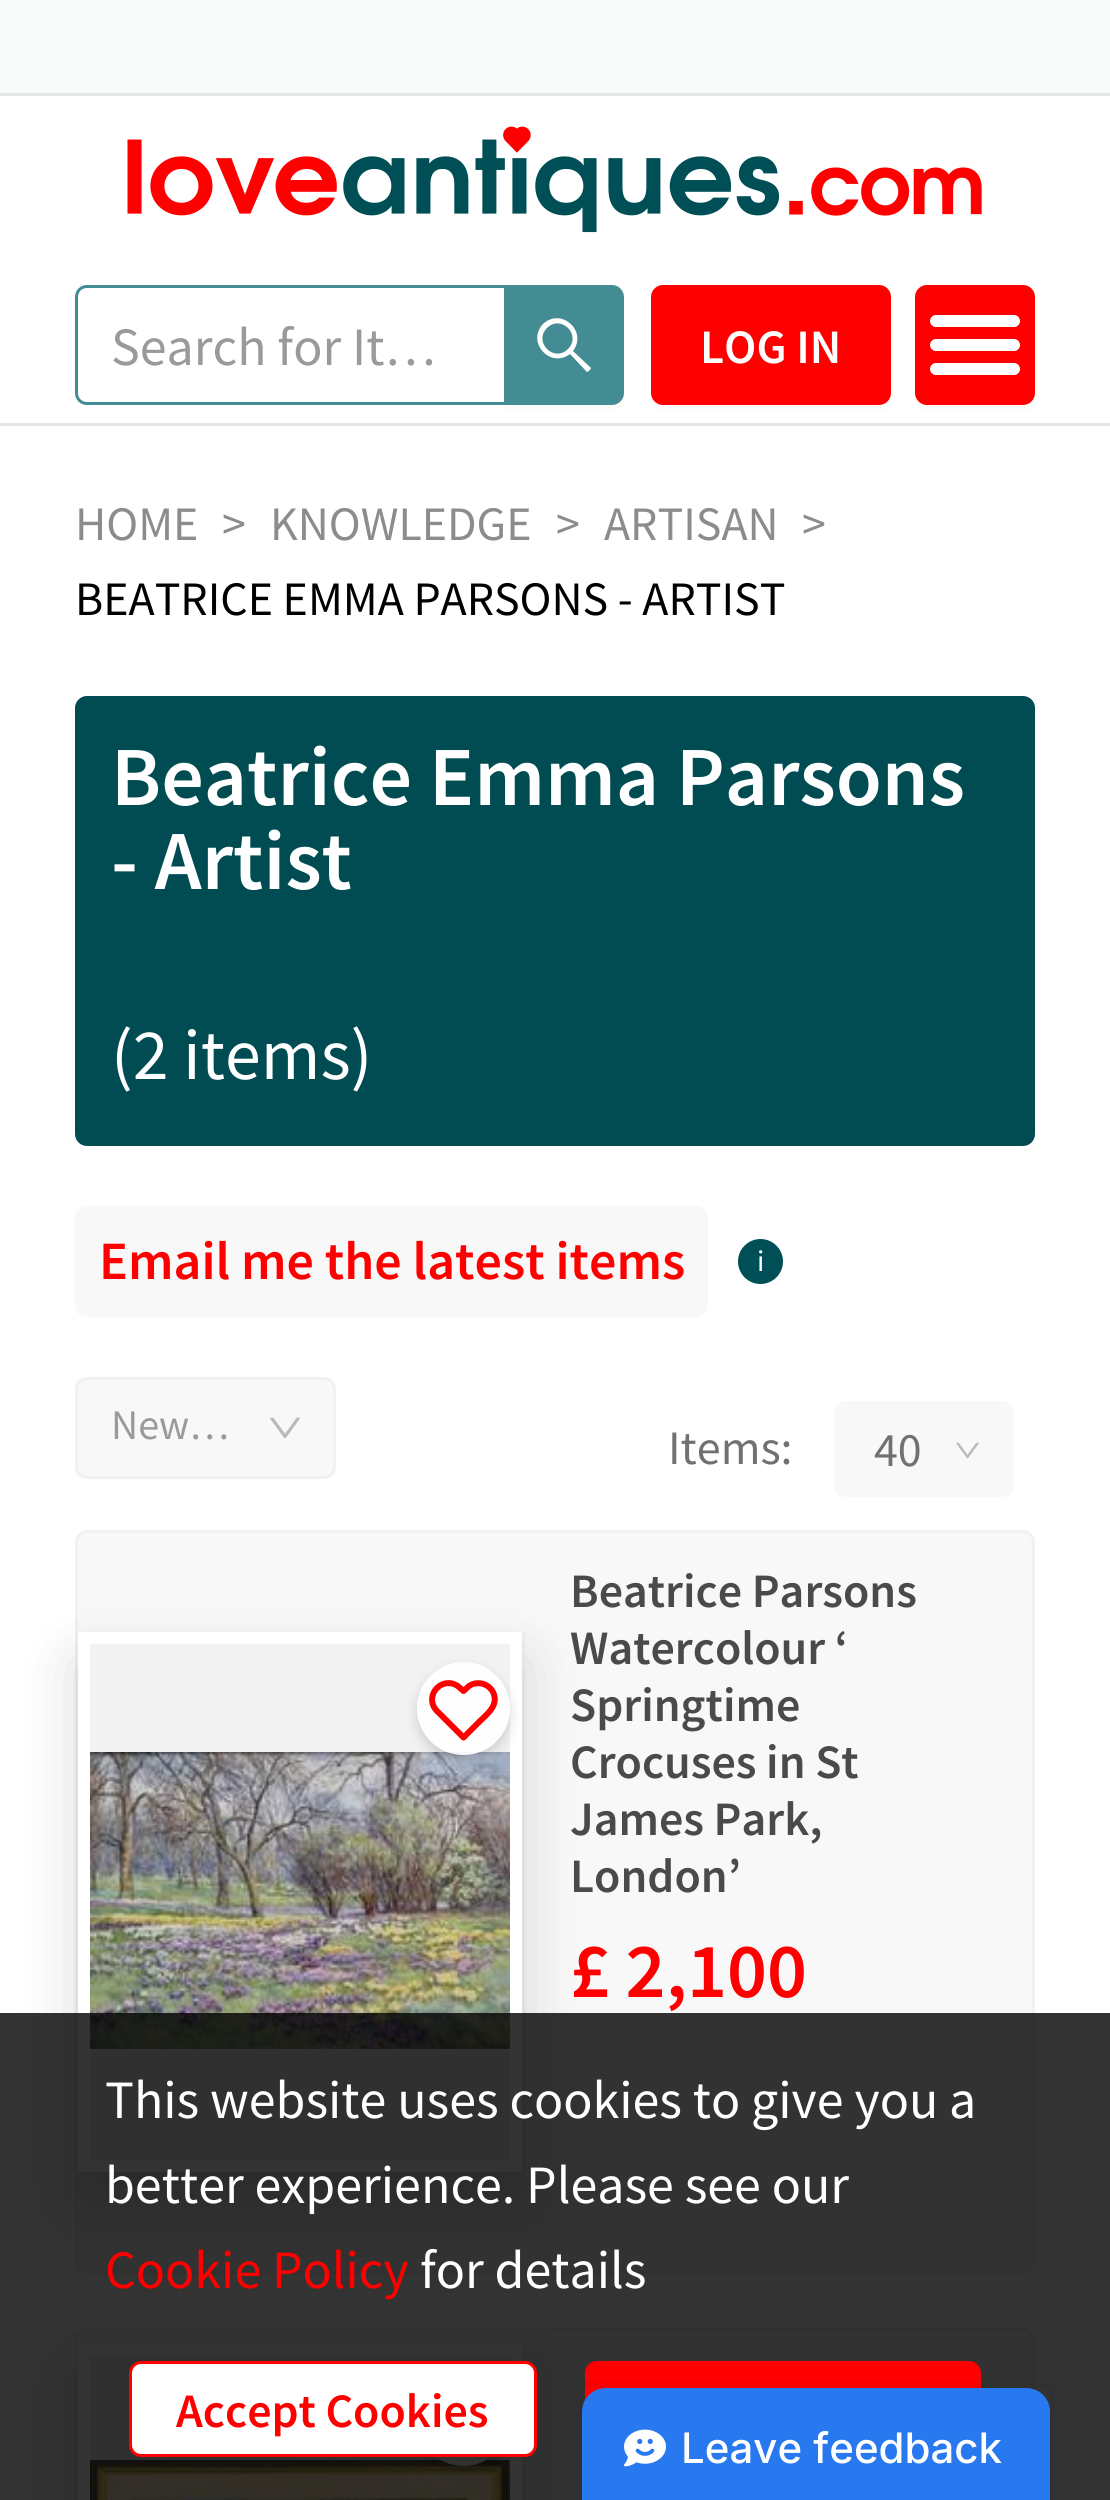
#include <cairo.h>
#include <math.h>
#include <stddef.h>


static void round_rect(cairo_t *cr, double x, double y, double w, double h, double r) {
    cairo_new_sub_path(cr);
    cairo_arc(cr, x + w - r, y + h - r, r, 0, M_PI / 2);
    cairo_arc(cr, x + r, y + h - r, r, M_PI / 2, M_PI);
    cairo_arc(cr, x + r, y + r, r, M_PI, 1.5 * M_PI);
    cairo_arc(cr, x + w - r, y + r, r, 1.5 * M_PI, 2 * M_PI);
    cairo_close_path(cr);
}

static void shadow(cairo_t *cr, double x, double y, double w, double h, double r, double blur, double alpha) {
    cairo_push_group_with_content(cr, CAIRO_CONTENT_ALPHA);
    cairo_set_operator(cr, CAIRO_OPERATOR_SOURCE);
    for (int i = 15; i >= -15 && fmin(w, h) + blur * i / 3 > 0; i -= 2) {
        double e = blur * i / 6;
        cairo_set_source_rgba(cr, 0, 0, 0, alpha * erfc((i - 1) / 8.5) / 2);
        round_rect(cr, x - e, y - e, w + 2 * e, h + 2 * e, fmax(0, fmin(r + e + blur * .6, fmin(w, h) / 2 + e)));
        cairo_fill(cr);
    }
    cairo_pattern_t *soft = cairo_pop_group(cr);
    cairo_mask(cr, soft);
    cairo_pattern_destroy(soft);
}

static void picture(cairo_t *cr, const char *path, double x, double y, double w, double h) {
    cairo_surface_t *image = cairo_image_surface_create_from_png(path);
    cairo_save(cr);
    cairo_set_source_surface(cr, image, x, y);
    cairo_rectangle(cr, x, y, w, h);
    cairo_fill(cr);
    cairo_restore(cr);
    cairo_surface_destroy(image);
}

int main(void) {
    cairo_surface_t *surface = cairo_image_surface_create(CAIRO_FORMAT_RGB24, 1110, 2500);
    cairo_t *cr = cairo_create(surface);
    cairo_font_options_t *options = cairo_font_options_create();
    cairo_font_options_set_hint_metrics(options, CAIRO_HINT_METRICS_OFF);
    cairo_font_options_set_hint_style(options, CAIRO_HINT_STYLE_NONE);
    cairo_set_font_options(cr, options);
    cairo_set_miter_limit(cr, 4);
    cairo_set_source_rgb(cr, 1, 1, 1);
    cairo_paint(cr);
    cairo_set_source_rgb(cr, 0.902, 0.902, 0.902);
    cairo_rectangle(cr, 0, 423, 1110, 3);
    cairo_fill(cr);
    cairo_set_source_rgb(cr, 0.973, 0.98, 0.98);
    cairo_rectangle(cr, 0, 0, 1110, 93);
    cairo_fill(cr);
    cairo_set_source_rgb(cr, 0.89, 0.906, 0.906);
    cairo_rectangle(cr, 0, 93, 1110, 3);
    cairo_fill(cr);
    picture(cr, "img1.png", 127, 126, 855, 107);
    cairo_new_path(cr);
    cairo_move_to(cr, 87, 286.5);
    cairo_line_to(cr, 505.5, 286.5);
    cairo_line_to(cr, 505.5, 403.5);
    cairo_line_to(cr, 87, 403.5);
    cairo_curve_to(cr, 81, 403.5, 76.5, 399, 76.5, 393);
    cairo_line_to(cr, 76.5, 297);
    cairo_curve_to(cr, 76.5, 291, 81, 286.5, 87, 286.5);
    cairo_close_path(cr);
    cairo_set_source_rgb(cr, 0.263, 0.549, 0.576);
    cairo_set_line_width(cr, 3);
    cairo_stroke(cr);
    cairo_select_font_face(cr, "Source Sans Pro", CAIRO_FONT_SLANT_NORMAL, CAIRO_FONT_WEIGHT_NORMAL);
    cairo_set_font_size(cr, 54);
    cairo_set_source_rgb(cr, 0.604, 0.604, 0.604);
    cairo_move_to(cr, 111, 365);
    cairo_show_text(cr, "Search for It…");
    cairo_set_source_rgb(cr, 0.984, 0.984, 0.984);
    cairo_new_path(cr);
    cairo_move_to(cr, 504, 405);
    cairo_line_to(cr, 504, 411);
    cairo_line_to(cr, 612, 411);
    cairo_curve_to(cr, 619, 411, 624, 406, 624, 399);
    cairo_line_to(cr, 624, 393);
    cairo_curve_to(cr, 624, 400, 619, 405, 612, 405);
    cairo_close_path(cr);
    cairo_fill(cr);
    cairo_set_source_rgb(cr, 0.263, 0.549, 0.576);
    cairo_new_path(cr);
    cairo_move_to(cr, 504, 285);
    cairo_line_to(cr, 612, 285);
    cairo_curve_to(cr, 618.5, 285, 624, 290.5, 624, 297);
    cairo_line_to(cr, 624, 393);
    cairo_curve_to(cr, 624, 399.5, 618.5, 405, 612, 405);
    cairo_line_to(cr, 504, 405);
    cairo_close_path(cr);
    cairo_fill(cr);
    cairo_set_source_rgb(cr, 1, 1, 1);
    cairo_new_path(cr);
    cairo_move_to(cr, 591, 368);
    cairo_line_to(cr, 573, 351);
    cairo_curve_to(cr, 588, 331, 561, 307, 543, 324);
    cairo_curve_to(cr, 526, 342, 550, 369, 570, 354);
    cairo_line_to(cr, 587, 372);
    cairo_curve_to(cr, 588, 372, 591, 369, 591, 368);
    cairo_close_path(cr);
    cairo_move_to(cr, 568, 349);
    cairo_curve_to(cr, 554, 363, 533, 342, 547, 328);
    cairo_curve_to(cr, 561, 314, 582, 335, 568, 349);
    cairo_close_path(cr);
    cairo_fill(cr);
    cairo_set_source_rgb(cr, 0.984, 0.984, 0.984);
    cairo_new_path(cr);
    cairo_move_to(cr, 651, 393);
    cairo_line_to(cr, 651, 399);
    cairo_curve_to(cr, 651, 406, 656, 411, 663, 411);
    cairo_line_to(cr, 879, 411);
    cairo_curve_to(cr, 886, 411, 891, 406, 891, 399);
    cairo_line_to(cr, 891, 393);
    cairo_curve_to(cr, 891, 400, 886, 405, 879, 405);
    cairo_line_to(cr, 663, 405);
    cairo_curve_to(cr, 656, 405, 651, 400, 651, 393);
    cairo_close_path(cr);
    cairo_fill(cr);
    cairo_set_source_rgb(cr, 1, 0, 0);
    round_rect(cr, 652.5, 286.5, 237, 117, 10.5);
    cairo_fill_preserve(cr);
    cairo_stroke(cr);
    cairo_select_font_face(cr, "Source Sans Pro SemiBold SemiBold", CAIRO_FONT_SLANT_NORMAL, CAIRO_FONT_WEIGHT_NORMAL);
    cairo_set_font_size(cr, 48);
    cairo_set_source_rgb(cr, 1, 1, 1);
    cairo_move_to(cr, 700, 363);
    cairo_show_text(cr, "LOG IN");
    cairo_set_source_rgb(cr, 0.984, 0.984, 0.984);
    cairo_new_path(cr);
    cairo_move_to(cr, 915, 393);
    cairo_line_to(cr, 915, 399);
    cairo_curve_to(cr, 915, 406, 920, 411, 927, 411);
    cairo_line_to(cr, 1023, 411);
    cairo_curve_to(cr, 1030, 411, 1035, 406, 1035, 399);
    cairo_line_to(cr, 1035, 393);
    cairo_curve_to(cr, 1035, 400, 1030, 405, 1023, 405);
    cairo_line_to(cr, 927, 405);
    cairo_curve_to(cr, 920, 405, 915, 400, 915, 393);
    cairo_close_path(cr);
    cairo_fill(cr);
    cairo_set_source_rgb(cr, 1, 0, 0);
    round_rect(cr, 916.5, 286.5, 117, 117, 10.5);
    cairo_fill_preserve(cr);
    cairo_stroke(cr);
    cairo_set_source_rgb(cr, 1, 1, 1);
    round_rect(cr, 930, 315, 90, 12, 6);
    cairo_fill(cr);
    round_rect(cr, 930, 339, 90, 12, 6);
    cairo_fill(cr);
    round_rect(cr, 930, 363, 90, 12, 6);
    cairo_fill(cr);
    cairo_select_font_face(cr, "Source Sans Pro", CAIRO_FONT_SLANT_NORMAL, CAIRO_FONT_WEIGHT_NORMAL);
    cairo_set_source_rgb(cr, 0.549, 0.549, 0.549);
    cairo_move_to(cr, 75, 540);
    cairo_show_text(cr, "HOME");
    cairo_move_to(cr, 222, 540);
    cairo_show_text(cr, ">");
    cairo_move_to(cr, 270, 540);
    cairo_show_text(cr, "KNOWLEDGE");
    cairo_move_to(cr, 556, 540);
    cairo_show_text(cr, ">");
    cairo_move_to(cr, 604, 540);
    cairo_show_text(cr, "ARTISAN");
    cairo_move_to(cr, 802, 540);
    cairo_show_text(cr, ">");
    cairo_set_source_rgb(cr, 0, 0, 0);
    cairo_move_to(cr, 75, 615);
    cairo_show_text(cr, "BEATRICE EMMA PARSONS - ARTIST");
    cairo_set_source_rgb(cr, 0, 0.298, 0.322);
    round_rect(cr, 75, 696, 960, 450, 12);
    cairo_fill(cr);
    cairo_select_font_face(cr, "Source Sans Pro SemiBold SemiBold", CAIRO_FONT_SLANT_NORMAL, CAIRO_FONT_WEIGHT_NORMAL);
    cairo_set_font_size(cr, 84);
    cairo_set_source_rgb(cr, 1, 1, 1);
    cairo_move_to(cr, 111, 805);
    cairo_show_text(cr, "Beatrice Emma Parsons");
    cairo_move_to(cr, 111, 889);
    cairo_show_text(cr, "- Artist");
    cairo_select_font_face(cr, "Source Sans Pro", CAIRO_FONT_SLANT_NORMAL, CAIRO_FONT_WEIGHT_NORMAL);
    cairo_set_font_size(cr, 72);
    cairo_move_to(cr, 111, 1079);
    cairo_show_text(cr, "(2 items)");
    cairo_set_source_rgb(cr, 0.969, 0.969, 0.969);
    round_rect(cr, 75, 1206, 633, 111, 12);
    cairo_fill(cr);
    cairo_select_font_face(cr, "Source Sans Pro SemiBold SemiBold", CAIRO_FONT_SLANT_NORMAL, CAIRO_FONT_WEIGHT_NORMAL);
    cairo_set_font_size(cr, 54);
    cairo_set_source_rgb(cr, 1, 0, 0);
    cairo_move_to(cr, 99, 1279);
    cairo_show_text(cr, "Email me the latest items");
    cairo_set_source_rgb(cr, 0, 0.31, 0.341);
    cairo_new_path(cr);
    cairo_arc(cr, 760.5, 1261.5, 22.5, 0, 2 * M_PI);
    cairo_fill(cr);
    cairo_select_font_face(cr, "Source Sans Pro", CAIRO_FONT_SLANT_NORMAL, CAIRO_FONT_WEIGHT_NORMAL);
    cairo_set_font_size(cr, 30);
    cairo_set_source_rgb(cr, 1, 1, 1);
    cairo_move_to(cr, 757, 1271);
    cairo_show_text(cr, "i");
    cairo_set_source_rgb(cr, 0.969, 0.969, 0.969);
    round_rect(cr, 76.5, 1378.5, 258, 99, 10.5);
    cairo_fill_preserve(cr);
    cairo_set_source_rgb(cr, 0.945, 0.945, 0.945);
    cairo_stroke(cr);
    cairo_set_font_size(cr, 42);
    cairo_set_source_rgb(cr, 0.604, 0.604, 0.604);
    cairo_move_to(cr, 111, 1439);
    cairo_show_text(cr, "New…");
    picture(cr, "img2.png", 270, 1417, 30, 22);
    cairo_set_font_size(cr, 48);
    cairo_set_source_rgb(cr, 0.443, 0.443, 0.443);
    cairo_move_to(cr, 668, 1464);
    cairo_show_text(cr, "Items:");
    cairo_set_source_rgb(cr, 0.969, 0.969, 0.969);
    round_rect(cr, 834, 1401, 180, 96, 12);
    cairo_fill(cr);
    cairo_set_source_rgb(cr, 0.443, 0.443, 0.443);
    cairo_move_to(cr, 874, 1466);
    cairo_show_text(cr, "40");
    picture(cr, "img3.png", 956, 1442, 23, 17);
    cairo_set_source_rgb(cr, 0.969, 0.969, 0.969);
    round_rect(cr, 76.5, 1531.5, 957, 741, 10.5);
    cairo_fill_preserve(cr);
    cairo_set_source_rgb(cr, 0.945, 0.945, 0.945);
    cairo_stroke(cr);
    cairo_set_source_rgb(cr, 1, 1, 1);
    cairo_rectangle(cr, 78, 1632, 444, 540);
    cairo_fill(cr);
    cairo_set_source_rgb(cr, 0.945, 0.945, 0.945);
    cairo_rectangle(cr, 522, 1632, 3, 540);
    cairo_fill(cr);
    cairo_save(cr);
    cairo_set_fill_rule(cr, CAIRO_FILL_RULE_EVEN_ODD);
    cairo_new_path(cr);
    cairo_move_to(cr, 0, 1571);
    cairo_line_to(cr, 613, 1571);
    cairo_line_to(cr, 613, 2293);
    cairo_line_to(cr, 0, 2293);
    cairo_close_path(cr);
    cairo_move_to(cr, 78, 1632);
    cairo_line_to(cr, 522, 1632);
    cairo_line_to(cr, 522, 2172);
    cairo_line_to(cr, 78, 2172);
    cairo_close_path(cr);
    cairo_clip(cr);
    cairo_set_source_rgb(cr, 0, 0, 0);
    shadow(cr, 78, 1662, 444, 540, 0, 30, 0.15);
    cairo_restore(cr);
    cairo_set_source_rgb(cr, 0.949, 0.949, 0.949);
    cairo_rectangle(cr, 90, 1644, 420, 516);
    cairo_fill(cr);
    picture(cr, "img4.png", 90, 1752, 420, 297);
    cairo_save(cr);
    cairo_set_fill_rule(cr, CAIRO_FILL_RULE_EVEN_ODD);
    cairo_new_path(cr);
    cairo_move_to(cr, 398, 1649);
    cairo_line_to(cr, 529, 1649);
    cairo_line_to(cr, 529, 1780);
    cairo_line_to(cr, 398, 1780);
    cairo_close_path(cr);
    cairo_move_to(cr, 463.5, 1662);
    cairo_curve_to(cr, 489, 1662, 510, 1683, 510, 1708.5);
    cairo_curve_to(cr, 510, 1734, 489, 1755, 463.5, 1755);
    cairo_curve_to(cr, 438, 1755, 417, 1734, 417, 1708.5);
    cairo_curve_to(cr, 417, 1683, 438, 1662, 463.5, 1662);
    cairo_close_path(cr);
    cairo_clip(cr);
    cairo_set_source_rgb(cr, 0, 0, 0);
    shadow(cr, 417, 1668, 93, 93, 46.5, 6, 0.15);
    cairo_restore(cr);
    cairo_set_source_rgba(cr, 1, 1, 1, 0.9);
    cairo_arc(cr, 463.5, 1708.5, 46.5, 0, 2 * M_PI);
    cairo_fill(cr);
    cairo_new_path(cr);
    cairo_move_to(cr, 490, 1688);
    cairo_curve_to(cr, 484.5, 1682.5, 475.5, 1681.5, 469, 1686);
    cairo_line_to(cr, 463.5, 1691);
    cairo_line_to(cr, 460, 1688);
    cairo_curve_to(cr, 453.5, 1681.5, 443.5, 1681.5, 437, 1688);
    cairo_curve_to(cr, 430.5, 1694.5, 430.5, 1704.5, 437, 1711);
    cairo_line_to(cr, 463.5, 1737.5);
    cairo_line_to(cr, 479, 1722);
    cairo_curve_to(cr, 486, 1715, 496.5, 1707.5, 494.5, 1696.5);
    cairo_curve_to(cr, 494, 1693, 492, 1690, 490, 1688);
    cairo_close_path(cr);
    cairo_set_source_rgb(cr, 1, 0, 0);
    cairo_set_line_width(cr, 6);
    cairo_set_line_cap(cr, CAIRO_LINE_CAP_ROUND);
    cairo_set_line_join(cr, CAIRO_LINE_JOIN_ROUND);
    cairo_stroke(cr);
    cairo_select_font_face(cr, "Source Sans Pro SemiBold SemiBold", CAIRO_FONT_SLANT_NORMAL, CAIRO_FONT_WEIGHT_NORMAL);
    cairo_set_source_rgb(cr, 0.29, 0.29, 0.29);
    cairo_move_to(cr, 570, 1607);
    cairo_show_text(cr, "Beatrice Parsons");
    cairo_move_to(cr, 570, 1664);
    cairo_show_text(cr, "Watercolour ‘");
    cairo_move_to(cr, 570, 1721);
    cairo_show_text(cr, "Springtime");
    cairo_move_to(cr, 570, 1778);
    cairo_show_text(cr, "Crocuses in St");
    cairo_move_to(cr, 570, 1835);
    cairo_show_text(cr, "James Park,");
    cairo_move_to(cr, 570, 1892);
    cairo_show_text(cr, "London’");
    cairo_set_font_size(cr, 78);
    cairo_set_source_rgb(cr, 1, 0, 0);
    cairo_move_to(cr, 570, 1997);
    cairo_show_text(cr, "£ 2,100");
    cairo_set_source_rgb(cr, 0.969, 0.969, 0.969);
    round_rect(cr, 76.5, 2329.5, 957, 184, 10.5);
    cairo_fill_preserve(cr);
    cairo_set_source_rgb(cr, 0.945, 0.945, 0.945);
    cairo_set_line_width(cr, 3);
    cairo_set_line_cap(cr, CAIRO_LINE_CAP_BUTT);
    cairo_set_line_join(cr, CAIRO_LINE_JOIN_MITER);
    cairo_stroke(cr);
    cairo_set_source_rgb(cr, 1, 1, 1);
    cairo_rectangle(cr, 78, 2343, 444, 157);
    cairo_fill(cr);
    cairo_set_source_rgb(cr, 0.945, 0.945, 0.945);
    cairo_rectangle(cr, 522, 2343, 3, 157);
    cairo_fill(cr);
    cairo_save(cr);
    cairo_set_fill_rule(cr, CAIRO_FILL_RULE_EVEN_ODD);
    cairo_new_path(cr);
    cairo_move_to(cr, 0, 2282);
    cairo_line_to(cr, 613, 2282);
    cairo_line_to(cr, 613, 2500);
    cairo_line_to(cr, 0, 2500);
    cairo_close_path(cr);
    cairo_move_to(cr, 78, 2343);
    cairo_line_to(cr, 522, 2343);
    cairo_line_to(cr, 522, 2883);
    cairo_line_to(cr, 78, 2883);
    cairo_close_path(cr);
    cairo_clip(cr);
    cairo_set_source_rgb(cr, 0, 0, 0);
    shadow(cr, 78, 2373, 444, 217, 0, 30, 0.15);
    cairo_restore(cr);
    cairo_set_source_rgb(cr, 0.949, 0.949, 0.949);
    cairo_rectangle(cr, 90, 2355, 420, 105);
    cairo_fill(cr);
    picture(cr, "img5.png", 90, 2460, 420, 40);
    cairo_save(cr);
    cairo_set_fill_rule(cr, CAIRO_FILL_RULE_EVEN_ODD);
    cairo_new_path(cr);
    cairo_move_to(cr, 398, 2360);
    cairo_line_to(cr, 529, 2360);
    cairo_line_to(cr, 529, 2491);
    cairo_line_to(cr, 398, 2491);
    cairo_close_path(cr);
    cairo_move_to(cr, 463.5, 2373);
    cairo_curve_to(cr, 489, 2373, 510, 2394, 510, 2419.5);
    cairo_curve_to(cr, 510, 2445, 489, 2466, 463.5, 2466);
    cairo_curve_to(cr, 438, 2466, 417, 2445, 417, 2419.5);
    cairo_curve_to(cr, 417, 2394, 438, 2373, 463.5, 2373);
    cairo_close_path(cr);
    cairo_clip(cr);
    cairo_set_source_rgb(cr, 0, 0, 0);
    shadow(cr, 417, 2379, 93, 93, 46.5, 6, 0.15);
    cairo_restore(cr);
    cairo_set_source_rgba(cr, 1, 1, 1, 0.9);
    cairo_arc(cr, 463.5, 2419.5, 46.5, 0, 2 * M_PI);
    cairo_fill(cr);
    cairo_set_source_rgba(cr, 0, 0, 0, 0.8);
    cairo_rectangle(cr, 0, 2013, 1110, 487);
    cairo_fill(cr);
    cairo_select_font_face(cr, "Source Sans Pro", CAIRO_FONT_SLANT_NORMAL, CAIRO_FONT_WEIGHT_NORMAL);
    cairo_set_font_size(cr, 54);
    cairo_set_source_rgb(cr, 1, 1, 1);
    cairo_move_to(cr, 105, 2118);
    cairo_show_text(cr, "This website uses cookies to give you a");
    cairo_move_to(cr, 105, 2203);
    cairo_show_text(cr, "better experience. Please see our");
    cairo_set_source_rgb(cr, 1, 0, 0);
    cairo_move_to(cr, 105, 2288);
    cairo_show_text(cr, "Cookie Policy");
    cairo_set_source_rgb(cr, 1, 1, 1);
    cairo_move_to(cr, 420, 2288);
    cairo_show_text(cr, "for details");
    round_rect(cr, 130.5, 2362.5, 405, 93, 10.5);
    cairo_fill_preserve(cr);
    cairo_set_source_rgb(cr, 1, 0, 0);
    cairo_stroke(cr);
    cairo_select_font_face(cr, "Source Sans Pro SemiBold SemiBold", CAIRO_FONT_SLANT_NORMAL, CAIRO_FONT_WEIGHT_NORMAL);
    cairo_set_font_size(cr, 48);
    cairo_move_to(cr, 176, 2427);
    cairo_show_text(cr, "Accept Cookies");
    round_rect(cr, 586.5, 2362.5, 393, 93, 10.5);
    cairo_fill_preserve(cr);
    cairo_stroke(cr);
    cairo_save(cr);
    cairo_set_fill_rule(cr, CAIRO_FILL_RULE_EVEN_ODD);
    cairo_new_path(cr);
    cairo_move_to(cr, 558, 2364);
    cairo_line_to(cr, 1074, 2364);
    cairo_line_to(cr, 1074, 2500);
    cairo_line_to(cr, 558, 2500);
    cairo_close_path(cr);
    cairo_move_to(cr, 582, 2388);
    cairo_line_to(cr, 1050, 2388);
    cairo_line_to(cr, 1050, 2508);
    cairo_line_to(cr, 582, 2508);
    cairo_close_path(cr);
    cairo_clip(cr);
    cairo_set_source_rgb(cr, 0, 0, 0);
    shadow(cr, 582, 2388, 468, 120, 0, 7.5, 0.1);
    cairo_restore(cr);
    cairo_set_source_rgb(cr, 0.157, 0.471, 0.941);
    cairo_new_path(cr);
    cairo_move_to(cr, 606, 2388);
    cairo_line_to(cr, 1026, 2388);
    cairo_curve_to(cr, 1039.5, 2388, 1050, 2398.5, 1050, 2412);
    cairo_line_to(cr, 1050, 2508);
    cairo_line_to(cr, 582, 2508);
    cairo_line_to(cr, 582, 2412);
    cairo_curve_to(cr, 582, 2398.5, 592.5, 2388, 606, 2388);
    cairo_close_path(cr);
    cairo_fill(cr);
    picture(cr, "img6.png", 624, 2429, 42, 38);
    cairo_select_font_face(cr, "Inter Medium", CAIRO_FONT_SLANT_NORMAL, CAIRO_FONT_WEIGHT_NORMAL);
    cairo_set_font_size(cr, 42);
    cairo_set_source_rgb(cr, 1, 1, 1);
    cairo_move_to(cr, 681, 2463);
    cairo_show_text(cr, "Leave feedback");
    cairo_surface_write_to_png(surface, "page.png");
    cairo_font_options_destroy(options);
    cairo_destroy(cr);
    cairo_surface_destroy(surface);
    return 0;
}
